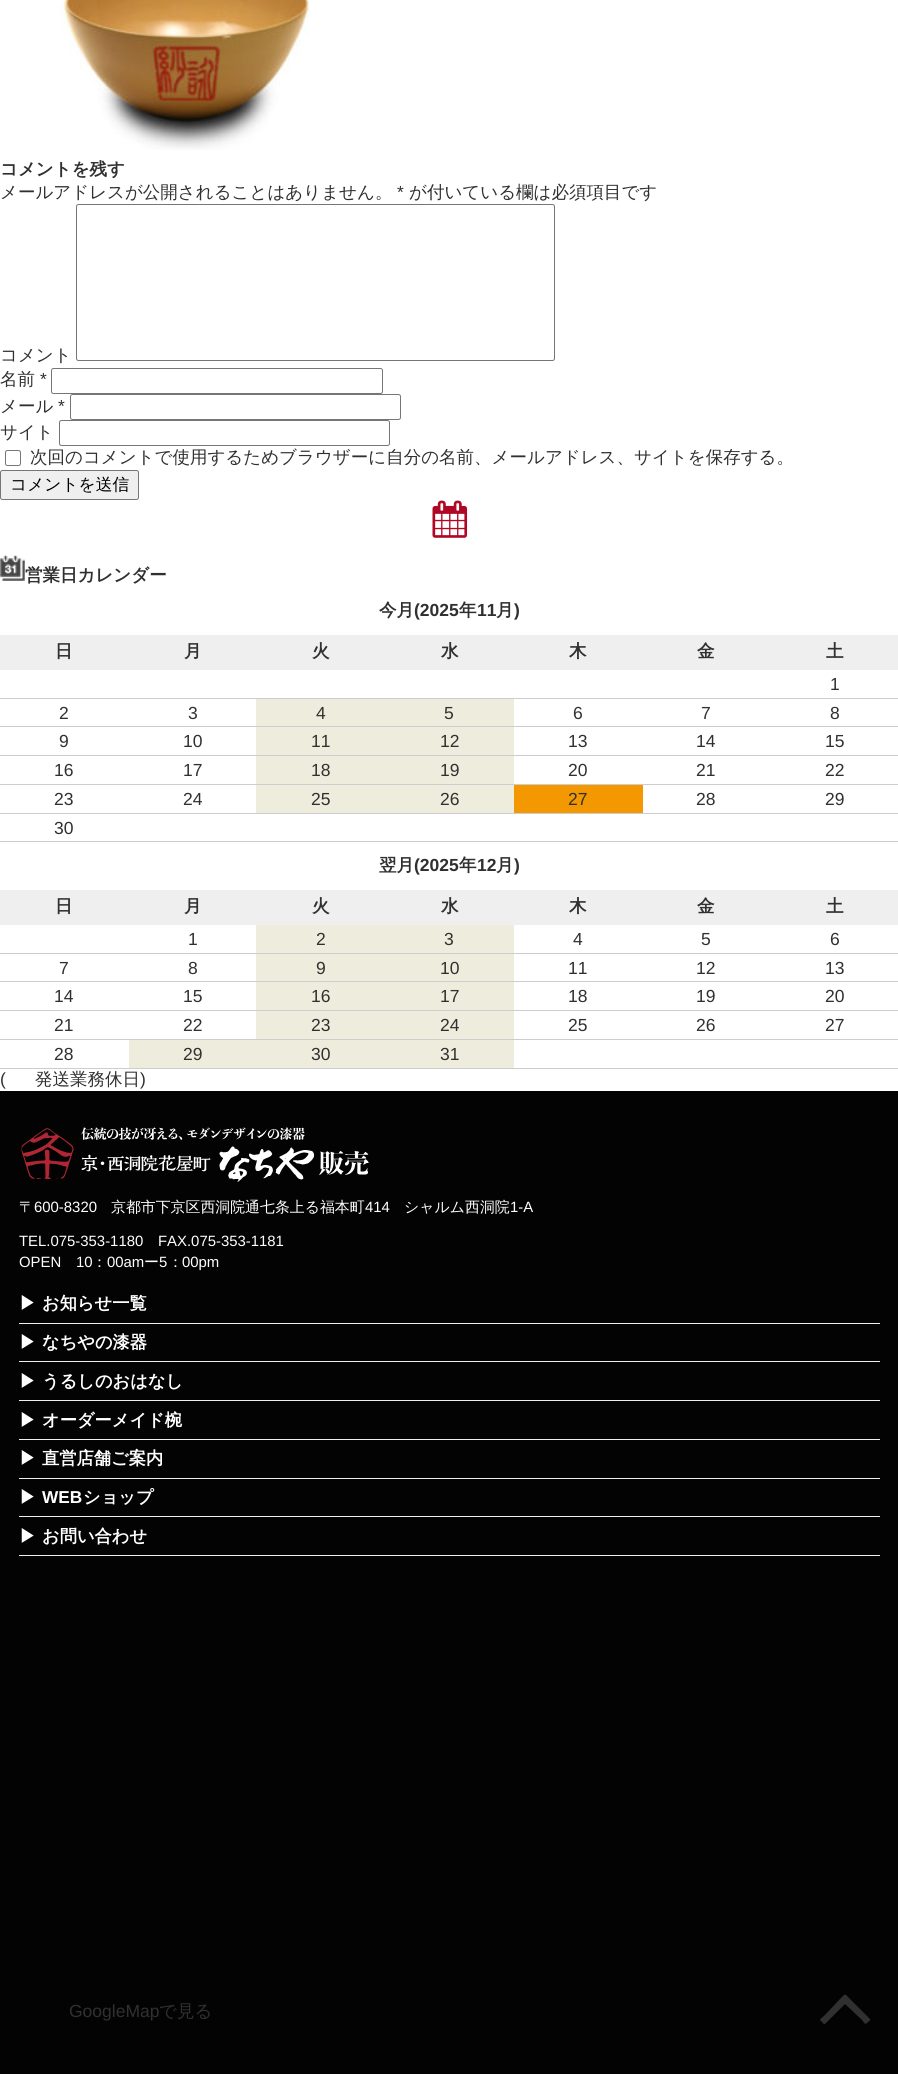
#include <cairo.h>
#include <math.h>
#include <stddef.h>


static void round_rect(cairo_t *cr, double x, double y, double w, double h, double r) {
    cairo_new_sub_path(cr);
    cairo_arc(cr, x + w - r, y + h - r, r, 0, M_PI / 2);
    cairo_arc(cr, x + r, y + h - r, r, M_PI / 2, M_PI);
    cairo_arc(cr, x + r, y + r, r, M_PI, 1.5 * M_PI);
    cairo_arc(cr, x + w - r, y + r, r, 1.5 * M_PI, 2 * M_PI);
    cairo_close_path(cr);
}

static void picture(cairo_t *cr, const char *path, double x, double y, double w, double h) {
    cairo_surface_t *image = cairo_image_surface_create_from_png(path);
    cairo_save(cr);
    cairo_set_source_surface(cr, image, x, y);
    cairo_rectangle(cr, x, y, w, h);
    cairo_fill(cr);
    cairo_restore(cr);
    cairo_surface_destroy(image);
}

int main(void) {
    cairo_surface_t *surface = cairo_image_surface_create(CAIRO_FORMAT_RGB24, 898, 2074);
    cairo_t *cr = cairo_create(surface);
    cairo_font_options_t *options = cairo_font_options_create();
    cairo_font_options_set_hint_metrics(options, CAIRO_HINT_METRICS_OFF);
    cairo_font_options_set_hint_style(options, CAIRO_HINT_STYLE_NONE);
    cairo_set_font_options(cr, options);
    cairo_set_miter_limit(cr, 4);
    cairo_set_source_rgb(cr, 1, 1, 1);
    cairo_paint(cr);
    picture(cr, "img1.png", 60, 0, 250, 150);
    cairo_select_font_face(cr, "WenQuanYi Zen Hei", CAIRO_FONT_SLANT_NORMAL, CAIRO_FONT_WEIGHT_BOLD);
    cairo_set_font_size(cr, 17.5);
    cairo_set_source_rgb(cr, 0.188, 0.188, 0.188);
    cairo_move_to(cr, 0, 175);
    cairo_show_text(cr, "コメントを残す");
    cairo_select_font_face(cr, "WenQuanYi Zen Hei Medium", CAIRO_FONT_SLANT_NORMAL, CAIRO_FONT_WEIGHT_NORMAL);
    cairo_move_to(cr, 0, 198);
    cairo_show_text(cr, "メールアドレスが公開されることはありません。");
    cairo_select_font_face(cr, "Liberation Sans", CAIRO_FONT_SLANT_NORMAL, CAIRO_FONT_WEIGHT_NORMAL);
    cairo_move_to(cr, 397, 198);
    cairo_show_text(cr, "*");
    cairo_select_font_face(cr, "WenQuanYi Zen Hei Medium", CAIRO_FONT_SLANT_NORMAL, CAIRO_FONT_WEIGHT_NORMAL);
    cairo_move_to(cr, 409, 198);
    cairo_show_text(cr, "が付いている欄は必須項目です");
    cairo_move_to(cr, 0, 361);
    cairo_show_text(cr, "コメント");
    round_rect(cr, 76.5, 204.5, 478, 156, 2);
    cairo_set_source_rgb(cr, 0.463, 0.463, 0.463);
    cairo_set_line_width(cr, 1);
    cairo_stroke(cr);
    cairo_set_source_rgb(cr, 0.188, 0.188, 0.188);
    cairo_move_to(cr, 0, 385);
    cairo_show_text(cr, "名前");
    cairo_select_font_face(cr, "Liberation Sans", CAIRO_FONT_SLANT_NORMAL, CAIRO_FONT_WEIGHT_NORMAL);
    cairo_move_to(cr, 40, 385);
    cairo_show_text(cr, "*");
    round_rect(cr, 51.5, 368.5, 331, 25, 2);
    cairo_set_source_rgb(cr, 0.463, 0.463, 0.463);
    cairo_stroke(cr);
    cairo_select_font_face(cr, "WenQuanYi Zen Hei Medium", CAIRO_FONT_SLANT_NORMAL, CAIRO_FONT_WEIGHT_NORMAL);
    cairo_set_source_rgb(cr, 0.188, 0.188, 0.188);
    cairo_move_to(cr, 0, 412);
    cairo_show_text(cr, "メール");
    cairo_select_font_face(cr, "Liberation Sans", CAIRO_FONT_SLANT_NORMAL, CAIRO_FONT_WEIGHT_NORMAL);
    cairo_move_to(cr, 58, 412);
    cairo_show_text(cr, "*");
    round_rect(cr, 70.5, 394.5, 330, 25, 2);
    cairo_set_source_rgb(cr, 0.463, 0.463, 0.463);
    cairo_stroke(cr);
    cairo_select_font_face(cr, "WenQuanYi Zen Hei Medium", CAIRO_FONT_SLANT_NORMAL, CAIRO_FONT_WEIGHT_NORMAL);
    cairo_set_source_rgb(cr, 0.188, 0.188, 0.188);
    cairo_move_to(cr, 0, 438);
    cairo_show_text(cr, "サイト");
    round_rect(cr, 59.5, 420.5, 330, 25, 2);
    cairo_set_source_rgb(cr, 0.463, 0.463, 0.463);
    cairo_stroke(cr);
    round_rect(cr, 5.5, 450.5, 15, 15, 2);
    cairo_stroke(cr);
    cairo_set_source_rgb(cr, 0.188, 0.188, 0.188);
    cairo_move_to(cr, 30, 463);
    cairo_show_text(cr, "次回のコメントで使用するためブラウザーに自分の名前、メールアドレス、サイトを保存する。");
    cairo_set_source_rgb(cr, 0.937, 0.937, 0.937);
    round_rect(cr, 0.5, 470.5, 138, 29, 2);
    cairo_fill_preserve(cr);
    cairo_set_source_rgb(cr, 0.463, 0.463, 0.463);
    cairo_stroke(cr);
    cairo_set_font_size(cr, 16.75);
    cairo_set_source_rgb(cr, 0, 0, 0);
    cairo_move_to(cr, 10, 490);
    cairo_show_text(cr, "コメントを送信");
    picture(cr, "img2.png", 432, 500, 36, 38);
    picture(cr, "img3.png", 0, 555, 25, 26);
    cairo_select_font_face(cr, "WenQuanYi Zen Hei", CAIRO_FONT_SLANT_NORMAL, CAIRO_FONT_WEIGHT_BOLD);
    cairo_set_font_size(cr, 17.5);
    cairo_set_source_rgb(cr, 0.188, 0.188, 0.188);
    cairo_move_to(cr, 25, 581);
    cairo_show_text(cr, "営業日カレンダー");
    cairo_move_to(cr, 379, 616);
    cairo_show_text(cr, "今月");
    cairo_select_font_face(cr, "Liberation Sans", CAIRO_FONT_SLANT_NORMAL, CAIRO_FONT_WEIGHT_BOLD);
    cairo_move_to(cr, 414, 616);
    cairo_show_text(cr, "(2025");
    cairo_select_font_face(cr, "WenQuanYi Zen Hei", CAIRO_FONT_SLANT_NORMAL, CAIRO_FONT_WEIGHT_BOLD);
    cairo_move_to(cr, 459, 616);
    cairo_show_text(cr, "年");
    cairo_select_font_face(cr, "Liberation Sans", CAIRO_FONT_SLANT_NORMAL, CAIRO_FONT_WEIGHT_BOLD);
    cairo_move_to(cr, 477, 616);
    cairo_show_text(cr, "11");
    cairo_select_font_face(cr, "WenQuanYi Zen Hei", CAIRO_FONT_SLANT_NORMAL, CAIRO_FONT_WEIGHT_BOLD);
    cairo_move_to(cr, 496, 616);
    cairo_show_text(cr, "月");
    cairo_select_font_face(cr, "Liberation Sans", CAIRO_FONT_SLANT_NORMAL, CAIRO_FONT_WEIGHT_BOLD);
    cairo_move_to(cr, 514, 616);
    cairo_show_text(cr, ")");
    cairo_set_source_rgb(cr, 0.937, 0.937, 0.937);
    cairo_rectangle(cr, 0, 635, 898, 35);
    cairo_fill(cr);
    cairo_select_font_face(cr, "WenQuanYi Zen Hei", CAIRO_FONT_SLANT_NORMAL, CAIRO_FONT_WEIGHT_BOLD);
    cairo_set_source_rgb(cr, 0.188, 0.188, 0.188);
    cairo_move_to(cr, 55, 657);
    cairo_show_text(cr, "日");
    cairo_move_to(cr, 184, 657);
    cairo_show_text(cr, "月");
    cairo_move_to(cr, 312, 657);
    cairo_show_text(cr, "火");
    cairo_move_to(cr, 441, 657);
    cairo_show_text(cr, "水");
    cairo_move_to(cr, 569, 657);
    cairo_show_text(cr, "木");
    cairo_move_to(cr, 697, 657);
    cairo_show_text(cr, "金");
    cairo_move_to(cr, 826, 657);
    cairo_show_text(cr, "土");
    cairo_set_source_rgb(cr, 0.804, 0.804, 0.804);
    cairo_rectangle(cr, 0, 698, 898, 1);
    cairo_fill(cr);
    cairo_select_font_face(cr, "Liberation Sans", CAIRO_FONT_SLANT_NORMAL, CAIRO_FONT_WEIGHT_NORMAL);
    cairo_set_source_rgb(cr, 0.188, 0.188, 0.188);
    cairo_move_to(cr, 830, 690);
    cairo_show_text(cr, "1");
    cairo_move_to(cr, 59, 719);
    cairo_show_text(cr, "2");
    cairo_move_to(cr, 188, 719);
    cairo_show_text(cr, "3");
    cairo_set_source_rgb(cr, 0.933, 0.929, 0.867);
    cairo_rectangle(cr, 256, 699, 258, 27);
    cairo_fill(cr);
    cairo_set_source_rgb(cr, 0.188, 0.188, 0.188);
    cairo_move_to(cr, 316, 719);
    cairo_show_text(cr, "4");
    cairo_move_to(cr, 444, 719);
    cairo_show_text(cr, "5");
    cairo_move_to(cr, 573, 719);
    cairo_show_text(cr, "6");
    cairo_move_to(cr, 701, 719);
    cairo_show_text(cr, "7");
    cairo_set_source_rgb(cr, 0.804, 0.804, 0.804);
    cairo_rectangle(cr, 0, 726, 898, 1);
    cairo_fill(cr);
    cairo_set_source_rgb(cr, 0.188, 0.188, 0.188);
    cairo_move_to(cr, 830, 719);
    cairo_show_text(cr, "8");
    cairo_move_to(cr, 59, 747);
    cairo_show_text(cr, "9");
    cairo_move_to(cr, 183, 747);
    cairo_show_text(cr, "10");
    cairo_set_source_rgb(cr, 0.933, 0.929, 0.867);
    cairo_rectangle(cr, 256, 727, 258, 28);
    cairo_fill(cr);
    cairo_set_source_rgb(cr, 0.188, 0.188, 0.188);
    cairo_move_to(cr, 311, 747);
    cairo_show_text(cr, "11");
    cairo_move_to(cr, 440, 747);
    cairo_show_text(cr, "12");
    cairo_move_to(cr, 568, 747);
    cairo_show_text(cr, "13");
    cairo_move_to(cr, 696, 747);
    cairo_show_text(cr, "14");
    cairo_set_source_rgb(cr, 0.804, 0.804, 0.804);
    cairo_rectangle(cr, 0, 755, 898, 1);
    cairo_fill(cr);
    cairo_set_source_rgb(cr, 0.188, 0.188, 0.188);
    cairo_move_to(cr, 825, 747);
    cairo_show_text(cr, "15");
    cairo_move_to(cr, 54, 776);
    cairo_show_text(cr, "16");
    cairo_move_to(cr, 183, 776);
    cairo_show_text(cr, "17");
    cairo_set_source_rgb(cr, 0.933, 0.929, 0.867);
    cairo_rectangle(cr, 256, 756, 258, 28);
    cairo_fill(cr);
    cairo_set_source_rgb(cr, 0.188, 0.188, 0.188);
    cairo_move_to(cr, 311, 776);
    cairo_show_text(cr, "18");
    cairo_move_to(cr, 440, 776);
    cairo_show_text(cr, "19");
    cairo_move_to(cr, 568, 776);
    cairo_show_text(cr, "20");
    cairo_move_to(cr, 696, 776);
    cairo_show_text(cr, "21");
    cairo_set_source_rgb(cr, 0.804, 0.804, 0.804);
    cairo_rectangle(cr, 0, 784, 898, 1);
    cairo_fill(cr);
    cairo_set_source_rgb(cr, 0.188, 0.188, 0.188);
    cairo_move_to(cr, 825, 776);
    cairo_show_text(cr, "22");
    cairo_move_to(cr, 54, 805);
    cairo_show_text(cr, "23");
    cairo_move_to(cr, 183, 805);
    cairo_show_text(cr, "24");
    cairo_set_source_rgb(cr, 0.933, 0.929, 0.867);
    cairo_rectangle(cr, 256, 785, 258, 28);
    cairo_fill(cr);
    cairo_set_source_rgb(cr, 0.188, 0.188, 0.188);
    cairo_move_to(cr, 311, 805);
    cairo_show_text(cr, "25");
    cairo_move_to(cr, 440, 805);
    cairo_show_text(cr, "26");
    cairo_set_source_rgb(cr, 0.953, 0.596, 0);
    cairo_rectangle(cr, 514, 785, 129, 28);
    cairo_fill(cr);
    cairo_set_source_rgb(cr, 0.188, 0.188, 0.188);
    cairo_move_to(cr, 568, 805);
    cairo_show_text(cr, "27");
    cairo_move_to(cr, 696, 805);
    cairo_show_text(cr, "28");
    cairo_set_source_rgb(cr, 0.804, 0.804, 0.804);
    cairo_rectangle(cr, 0, 813, 898, 1);
    cairo_fill(cr);
    cairo_set_source_rgb(cr, 0.188, 0.188, 0.188);
    cairo_move_to(cr, 825, 805);
    cairo_show_text(cr, "29");
    cairo_move_to(cr, 54, 834);
    cairo_show_text(cr, "30");
    cairo_set_source_rgb(cr, 0.804, 0.804, 0.804);
    cairo_rectangle(cr, 0, 841, 898, 1);
    cairo_fill(cr);
    cairo_select_font_face(cr, "WenQuanYi Zen Hei", CAIRO_FONT_SLANT_NORMAL, CAIRO_FONT_WEIGHT_BOLD);
    cairo_set_source_rgb(cr, 0.188, 0.188, 0.188);
    cairo_move_to(cr, 379, 871);
    cairo_show_text(cr, "翌月");
    cairo_select_font_face(cr, "Liberation Sans", CAIRO_FONT_SLANT_NORMAL, CAIRO_FONT_WEIGHT_BOLD);
    cairo_move_to(cr, 414, 871);
    cairo_show_text(cr, "(2025");
    cairo_select_font_face(cr, "WenQuanYi Zen Hei", CAIRO_FONT_SLANT_NORMAL, CAIRO_FONT_WEIGHT_BOLD);
    cairo_move_to(cr, 459, 871);
    cairo_show_text(cr, "年");
    cairo_select_font_face(cr, "Liberation Sans", CAIRO_FONT_SLANT_NORMAL, CAIRO_FONT_WEIGHT_BOLD);
    cairo_move_to(cr, 477, 871);
    cairo_show_text(cr, "12");
    cairo_select_font_face(cr, "WenQuanYi Zen Hei", CAIRO_FONT_SLANT_NORMAL, CAIRO_FONT_WEIGHT_BOLD);
    cairo_move_to(cr, 496, 871);
    cairo_show_text(cr, "月");
    cairo_select_font_face(cr, "Liberation Sans", CAIRO_FONT_SLANT_NORMAL, CAIRO_FONT_WEIGHT_BOLD);
    cairo_move_to(cr, 514, 871);
    cairo_show_text(cr, ")");
    cairo_set_source_rgb(cr, 0.937, 0.937, 0.937);
    cairo_rectangle(cr, 0, 890, 898, 35);
    cairo_fill(cr);
    cairo_select_font_face(cr, "WenQuanYi Zen Hei", CAIRO_FONT_SLANT_NORMAL, CAIRO_FONT_WEIGHT_BOLD);
    cairo_set_source_rgb(cr, 0.188, 0.188, 0.188);
    cairo_move_to(cr, 55, 912);
    cairo_show_text(cr, "日");
    cairo_move_to(cr, 184, 912);
    cairo_show_text(cr, "月");
    cairo_move_to(cr, 312, 912);
    cairo_show_text(cr, "火");
    cairo_move_to(cr, 441, 912);
    cairo_show_text(cr, "水");
    cairo_move_to(cr, 569, 912);
    cairo_show_text(cr, "木");
    cairo_move_to(cr, 697, 912);
    cairo_show_text(cr, "金");
    cairo_move_to(cr, 826, 912);
    cairo_show_text(cr, "土");
    cairo_select_font_face(cr, "Liberation Sans", CAIRO_FONT_SLANT_NORMAL, CAIRO_FONT_WEIGHT_NORMAL);
    cairo_move_to(cr, 188, 945);
    cairo_show_text(cr, "1");
    cairo_set_source_rgb(cr, 0.933, 0.929, 0.867);
    cairo_rectangle(cr, 256, 925, 258, 28);
    cairo_fill(cr);
    cairo_set_source_rgb(cr, 0.188, 0.188, 0.188);
    cairo_move_to(cr, 316, 945);
    cairo_show_text(cr, "2");
    cairo_move_to(cr, 444, 945);
    cairo_show_text(cr, "3");
    cairo_move_to(cr, 573, 945);
    cairo_show_text(cr, "4");
    cairo_move_to(cr, 701, 945);
    cairo_show_text(cr, "5");
    cairo_set_source_rgb(cr, 0.804, 0.804, 0.804);
    cairo_rectangle(cr, 0, 953, 898, 1);
    cairo_fill(cr);
    cairo_set_source_rgb(cr, 0.188, 0.188, 0.188);
    cairo_move_to(cr, 830, 945);
    cairo_show_text(cr, "6");
    cairo_move_to(cr, 59, 974);
    cairo_show_text(cr, "7");
    cairo_move_to(cr, 188, 974);
    cairo_show_text(cr, "8");
    cairo_set_source_rgb(cr, 0.933, 0.929, 0.867);
    cairo_rectangle(cr, 256, 954, 258, 27);
    cairo_fill(cr);
    cairo_set_source_rgb(cr, 0.188, 0.188, 0.188);
    cairo_move_to(cr, 316, 974);
    cairo_show_text(cr, "9");
    cairo_move_to(cr, 440, 974);
    cairo_show_text(cr, "10");
    cairo_move_to(cr, 568, 974);
    cairo_show_text(cr, "11");
    cairo_move_to(cr, 696, 974);
    cairo_show_text(cr, "12");
    cairo_set_source_rgb(cr, 0.804, 0.804, 0.804);
    cairo_rectangle(cr, 0, 981, 898, 1);
    cairo_fill(cr);
    cairo_set_source_rgb(cr, 0.188, 0.188, 0.188);
    cairo_move_to(cr, 825, 974);
    cairo_show_text(cr, "13");
    cairo_move_to(cr, 54, 1002);
    cairo_show_text(cr, "14");
    cairo_move_to(cr, 183, 1002);
    cairo_show_text(cr, "15");
    cairo_set_source_rgb(cr, 0.933, 0.929, 0.867);
    cairo_rectangle(cr, 256, 982, 258, 28);
    cairo_fill(cr);
    cairo_set_source_rgb(cr, 0.188, 0.188, 0.188);
    cairo_move_to(cr, 311, 1002);
    cairo_show_text(cr, "16");
    cairo_move_to(cr, 440, 1002);
    cairo_show_text(cr, "17");
    cairo_move_to(cr, 568, 1002);
    cairo_show_text(cr, "18");
    cairo_move_to(cr, 696, 1002);
    cairo_show_text(cr, "19");
    cairo_set_source_rgb(cr, 0.804, 0.804, 0.804);
    cairo_rectangle(cr, 0, 1010, 898, 1);
    cairo_fill(cr);
    cairo_set_source_rgb(cr, 0.188, 0.188, 0.188);
    cairo_move_to(cr, 825, 1002);
    cairo_show_text(cr, "20");
    cairo_move_to(cr, 54, 1031);
    cairo_show_text(cr, "21");
    cairo_move_to(cr, 183, 1031);
    cairo_show_text(cr, "22");
    cairo_set_source_rgb(cr, 0.933, 0.929, 0.867);
    cairo_rectangle(cr, 256, 1011, 258, 28);
    cairo_fill(cr);
    cairo_set_source_rgb(cr, 0.188, 0.188, 0.188);
    cairo_move_to(cr, 311, 1031);
    cairo_show_text(cr, "23");
    cairo_move_to(cr, 440, 1031);
    cairo_show_text(cr, "24");
    cairo_move_to(cr, 568, 1031);
    cairo_show_text(cr, "25");
    cairo_move_to(cr, 696, 1031);
    cairo_show_text(cr, "26");
    cairo_set_source_rgb(cr, 0.804, 0.804, 0.804);
    cairo_rectangle(cr, 0, 1039, 898, 1);
    cairo_fill(cr);
    cairo_set_source_rgb(cr, 0.188, 0.188, 0.188);
    cairo_move_to(cr, 825, 1031);
    cairo_show_text(cr, "27");
    cairo_move_to(cr, 54, 1060);
    cairo_show_text(cr, "28");
    cairo_set_source_rgb(cr, 0.933, 0.929, 0.867);
    cairo_rectangle(cr, 129, 1040, 385, 28);
    cairo_fill(cr);
    cairo_set_source_rgb(cr, 0.188, 0.188, 0.188);
    cairo_move_to(cr, 183, 1060);
    cairo_show_text(cr, "29");
    cairo_move_to(cr, 311, 1060);
    cairo_show_text(cr, "30");
    cairo_move_to(cr, 440, 1060);
    cairo_show_text(cr, "31");
    cairo_set_source_rgb(cr, 0.804, 0.804, 0.804);
    cairo_rectangle(cr, 0, 1068, 898, 1);
    cairo_fill(cr);
    cairo_set_source_rgb(cr, 0.188, 0.188, 0.188);
    cairo_move_to(cr, 0, 1085);
    cairo_show_text(cr, "(");
    cairo_select_font_face(cr, "WenQuanYi Zen Hei Medium", CAIRO_FONT_SLANT_NORMAL, CAIRO_FONT_WEIGHT_NORMAL);
    cairo_move_to(cr, 35, 1085);
    cairo_show_text(cr, "発送業務休日");
    cairo_select_font_face(cr, "Liberation Sans", CAIRO_FONT_SLANT_NORMAL, CAIRO_FONT_WEIGHT_NORMAL);
    cairo_move_to(cr, 140, 1085);
    cairo_show_text(cr, ")");
    cairo_set_source_rgb(cr, 0.012, 0.012, 0.012);
    cairo_rectangle(cr, 0, 1091, 898, 983);
    cairo_fill(cr);
    picture(cr, "img4.png", 21, 1127, 348, 55);
    cairo_select_font_face(cr, "WenQuanYi Zen Hei Medium", CAIRO_FONT_SLANT_NORMAL, CAIRO_FONT_WEIGHT_NORMAL);
    cairo_set_font_size(cr, 14.9);
    cairo_set_source_rgb(cr, 1, 1, 1);
    cairo_move_to(cr, 19, 1212);
    cairo_show_text(cr, "〒");
    cairo_select_font_face(cr, "Liberation Sans", CAIRO_FONT_SLANT_NORMAL, CAIRO_FONT_WEIGHT_NORMAL);
    cairo_move_to(cr, 34, 1212);
    cairo_show_text(cr, "600-8320");
    cairo_select_font_face(cr, "WenQuanYi Zen Hei Medium", CAIRO_FONT_SLANT_NORMAL, CAIRO_FONT_WEIGHT_NORMAL);
    cairo_move_to(cr, 111, 1212);
    cairo_show_text(cr, "京都市下京区西洞院通七条上る福本町");
    cairo_select_font_face(cr, "Liberation Sans", CAIRO_FONT_SLANT_NORMAL, CAIRO_FONT_WEIGHT_NORMAL);
    cairo_move_to(cr, 365, 1212);
    cairo_show_text(cr, "414");
    cairo_select_font_face(cr, "WenQuanYi Zen Hei Medium", CAIRO_FONT_SLANT_NORMAL, CAIRO_FONT_WEIGHT_NORMAL);
    cairo_move_to(cr, 404, 1212);
    cairo_show_text(cr, "シャルム西洞院");
    cairo_select_font_face(cr, "Liberation Sans", CAIRO_FONT_SLANT_NORMAL, CAIRO_FONT_WEIGHT_NORMAL);
    cairo_move_to(cr, 510, 1212);
    cairo_show_text(cr, "1-A");
    cairo_move_to(cr, 19, 1246);
    cairo_show_text(cr, "TEL.075-353-1180");
    cairo_move_to(cr, 158, 1246);
    cairo_show_text(cr, "FAX.075-353-1181");
    cairo_move_to(cr, 19, 1267);
    cairo_show_text(cr, "OPEN");
    cairo_move_to(cr, 76, 1267);
    cairo_show_text(cr, "10");
    cairo_select_font_face(cr, "WenQuanYi Zen Hei Medium", CAIRO_FONT_SLANT_NORMAL, CAIRO_FONT_WEIGHT_NORMAL);
    cairo_move_to(cr, 92, 1267);
    cairo_show_text(cr, "：");
    cairo_select_font_face(cr, "Liberation Sans", CAIRO_FONT_SLANT_NORMAL, CAIRO_FONT_WEIGHT_NORMAL);
    cairo_move_to(cr, 107, 1267);
    cairo_show_text(cr, "00am");
    cairo_select_font_face(cr, "WenQuanYi Zen Hei Medium", CAIRO_FONT_SLANT_NORMAL, CAIRO_FONT_WEIGHT_NORMAL);
    cairo_move_to(cr, 144, 1267);
    cairo_show_text(cr, "ー");
    cairo_select_font_face(cr, "Liberation Sans", CAIRO_FONT_SLANT_NORMAL, CAIRO_FONT_WEIGHT_NORMAL);
    cairo_move_to(cr, 159, 1267);
    cairo_show_text(cr, "5");
    cairo_select_font_face(cr, "WenQuanYi Zen Hei Medium", CAIRO_FONT_SLANT_NORMAL, CAIRO_FONT_WEIGHT_NORMAL);
    cairo_move_to(cr, 168, 1267);
    cairo_show_text(cr, "：");
    cairo_select_font_face(cr, "Liberation Sans", CAIRO_FONT_SLANT_NORMAL, CAIRO_FONT_WEIGHT_NORMAL);
    cairo_move_to(cr, 182, 1267);
    cairo_show_text(cr, "00pm");
    cairo_set_source_rgb(cr, 0.937, 0.937, 0.937);
    cairo_rectangle(cr, 19, 1323, 861, 1);
    cairo_fill(cr);
    cairo_select_font_face(cr, "WenQuanYi Zen Hei", CAIRO_FONT_SLANT_NORMAL, CAIRO_FONT_WEIGHT_BOLD);
    cairo_set_font_size(cr, 17.25);
    cairo_set_source_rgb(cr, 1, 1, 1);
    cairo_move_to(cr, 19, 1309);
    cairo_show_text(cr, "▶");
    cairo_move_to(cr, 42, 1309);
    cairo_show_text(cr, "お知らせ一覧");
    cairo_set_source_rgb(cr, 0.937, 0.937, 0.937);
    cairo_rectangle(cr, 19, 1361, 861, 1);
    cairo_fill(cr);
    cairo_set_source_rgb(cr, 1, 1, 1);
    cairo_move_to(cr, 19, 1348);
    cairo_show_text(cr, "▶");
    cairo_move_to(cr, 42, 1348);
    cairo_show_text(cr, "なちやの漆器");
    cairo_set_source_rgb(cr, 0.937, 0.937, 0.937);
    cairo_rectangle(cr, 19, 1400, 861, 1);
    cairo_fill(cr);
    cairo_set_source_rgb(cr, 1, 1, 1);
    cairo_move_to(cr, 19, 1387);
    cairo_show_text(cr, "▶");
    cairo_move_to(cr, 42, 1387);
    cairo_show_text(cr, "うるしのおはなし");
    cairo_set_source_rgb(cr, 0.937, 0.937, 0.937);
    cairo_rectangle(cr, 19, 1439, 861, 1);
    cairo_fill(cr);
    cairo_set_source_rgb(cr, 1, 1, 1);
    cairo_move_to(cr, 19, 1426);
    cairo_show_text(cr, "▶");
    cairo_move_to(cr, 42, 1426);
    cairo_show_text(cr, "オーダーメイド椀");
    cairo_set_source_rgb(cr, 0.937, 0.937, 0.937);
    cairo_rectangle(cr, 19, 1478, 861, 1);
    cairo_fill(cr);
    cairo_set_source_rgb(cr, 1, 1, 1);
    cairo_move_to(cr, 19, 1464);
    cairo_show_text(cr, "▶");
    cairo_move_to(cr, 42, 1464);
    cairo_show_text(cr, "直営店舗ご案内");
    cairo_set_source_rgb(cr, 0.937, 0.937, 0.937);
    cairo_rectangle(cr, 19, 1516, 861, 1);
    cairo_fill(cr);
    cairo_set_source_rgb(cr, 1, 1, 1);
    cairo_move_to(cr, 19, 1503);
    cairo_show_text(cr, "▶");
    cairo_select_font_face(cr, "Liberation Sans", CAIRO_FONT_SLANT_NORMAL, CAIRO_FONT_WEIGHT_BOLD);
    cairo_move_to(cr, 42, 1503);
    cairo_show_text(cr, "WEB");
    cairo_select_font_face(cr, "WenQuanYi Zen Hei", CAIRO_FONT_SLANT_NORMAL, CAIRO_FONT_WEIGHT_BOLD);
    cairo_move_to(cr, 83, 1503);
    cairo_show_text(cr, "ショップ");
    cairo_set_source_rgb(cr, 0.937, 0.937, 0.937);
    cairo_rectangle(cr, 19, 1555, 861, 1);
    cairo_fill(cr);
    cairo_set_source_rgb(cr, 1, 1, 1);
    cairo_move_to(cr, 19, 1542);
    cairo_show_text(cr, "▶");
    cairo_move_to(cr, 42, 1542);
    cairo_show_text(cr, "お問い合わせ");
    cairo_select_font_face(cr, "Liberation Sans", CAIRO_FONT_SLANT_NORMAL, CAIRO_FONT_WEIGHT_NORMAL);
    cairo_set_font_size(cr, 17.5);
    cairo_set_source_rgb(cr, 0.188, 0.188, 0.188);
    cairo_move_to(cr, 69, 2017);
    cairo_show_text(cr, "GoogleMap");
    cairo_select_font_face(cr, "WenQuanYi Zen Hei Medium", CAIRO_FONT_SLANT_NORMAL, CAIRO_FONT_WEIGHT_NORMAL);
    cairo_move_to(cr, 159, 2017);
    cairo_show_text(cr, "で見る");
    cairo_new_path(cr);
    cairo_move_to(cr, 870, 2019);
    cairo_curve_to(cr, 871, 2020, 869, 2021, 868, 2022);
    cairo_curve_to(cr, 865, 2025, 865, 2024, 862, 2020);
    cairo_line_to(cr, 845, 2004);
    cairo_line_to(cr, 825, 2024);
    cairo_curve_to(cr, 824, 2025, 823, 2023, 822, 2022);
    cairo_curve_to(cr, 818, 2019, 821, 2019, 825, 2015);
    cairo_line_to(cr, 840, 1999);
    cairo_curve_to(cr, 846, 1993, 844, 1993, 850, 1999);
    cairo_close_path(cr);
    cairo_fill(cr);
    cairo_surface_write_to_png(surface, "page.png");
    cairo_font_options_destroy(options);
    cairo_destroy(cr);
    cairo_surface_destroy(surface);
    return 0;
}
